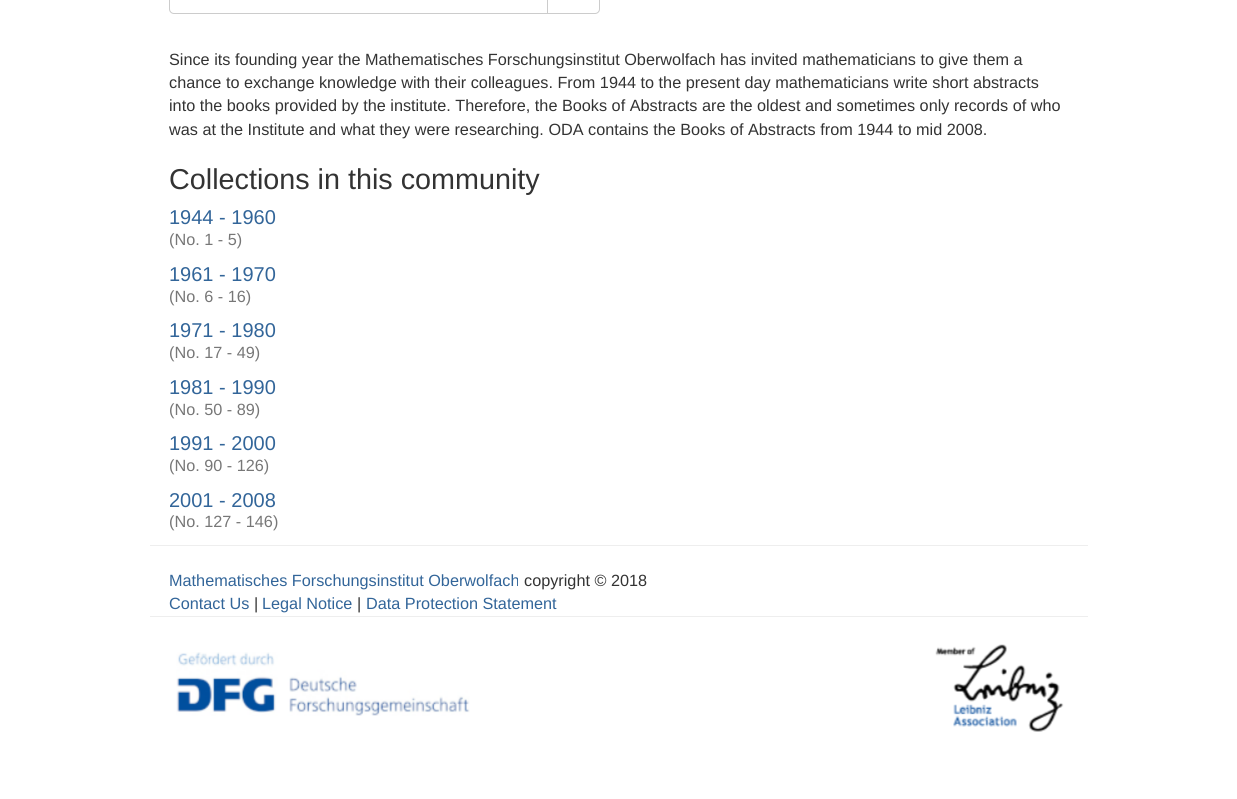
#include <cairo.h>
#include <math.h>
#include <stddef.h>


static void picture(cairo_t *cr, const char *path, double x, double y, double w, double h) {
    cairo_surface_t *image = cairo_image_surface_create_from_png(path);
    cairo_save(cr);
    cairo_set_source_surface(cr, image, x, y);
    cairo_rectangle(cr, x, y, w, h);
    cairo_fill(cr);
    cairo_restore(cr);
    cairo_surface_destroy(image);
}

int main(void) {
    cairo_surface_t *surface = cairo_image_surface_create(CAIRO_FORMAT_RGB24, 1237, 799);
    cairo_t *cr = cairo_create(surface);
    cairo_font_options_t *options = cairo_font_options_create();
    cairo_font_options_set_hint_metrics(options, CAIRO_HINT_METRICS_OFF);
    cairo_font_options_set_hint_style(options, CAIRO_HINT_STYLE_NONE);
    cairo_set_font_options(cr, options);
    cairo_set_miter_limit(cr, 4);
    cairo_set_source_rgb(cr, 1, 1, 1);
    cairo_paint(cr);
    cairo_new_path(cr);
    cairo_move_to(cr, 546.5, -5.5);
    cairo_line_to(cr, 595, -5.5);
    cairo_curve_to(cr, 597.5, -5.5, 599.5, -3.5, 599.5, -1);
    cairo_line_to(cr, 599.5, 9);
    cairo_curve_to(cr, 599.5, 11.5, 597.5, 13.5, 595, 13.5);
    cairo_line_to(cr, 546.5, 13.5);
    cairo_close_path(cr);
    cairo_set_source_rgb(cr, 0.8, 0.8, 0.8);
    cairo_set_line_width(cr, 1);
    cairo_stroke(cr);
    cairo_set_source_rgb(cr, 1, 1, 1);
    cairo_new_path(cr);
    cairo_move_to(cr, 174, -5.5);
    cairo_line_to(cr, 547.5, -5.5);
    cairo_line_to(cr, 547.5, 13.5);
    cairo_line_to(cr, 174, 13.5);
    cairo_curve_to(cr, 171.5, 13.5, 169.5, 11.5, 169.5, 9);
    cairo_line_to(cr, 169.5, -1);
    cairo_curve_to(cr, 169.5, -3.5, 171.5, -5.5, 174, -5.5);
    cairo_close_path(cr);
    cairo_fill_preserve(cr);
    cairo_set_source_rgb(cr, 0.8, 0.8, 0.8);
    cairo_stroke(cr);
    cairo_select_font_face(cr, "Liberation Sans", CAIRO_FONT_SLANT_NORMAL, CAIRO_FONT_WEIGHT_NORMAL);
    cairo_set_font_size(cr, 16.25);
    cairo_set_source_rgb(cr, 0.2, 0.2, 0.2);
    cairo_move_to(cr, 169, 65);
    cairo_show_text(cr, "Since its founding year the Mathematisches Forschungsinstitut Oberwolfach has invited mathematicians to give them a");
    cairo_move_to(cr, 169, 88);
    cairo_show_text(cr, "chance to exchange knowledge with their colleagues. From 1944 to the present day mathematicians write short abstracts");
    cairo_move_to(cr, 169, 111);
    cairo_show_text(cr, "into the books provided by the institute. Therefore, the Books of Abstracts are the oldest and sometimes only records of who");
    cairo_move_to(cr, 169, 135);
    cairo_show_text(cr, "was at the Institute and what they were researching. ODA contains the Books of Abstracts from 1944 to mid 2008.");
    cairo_set_font_size(cr, 28.75);
    cairo_move_to(cr, 169, 189);
    cairo_show_text(cr, "Collections in this community");
    cairo_set_font_size(cr, 20);
    cairo_set_source_rgb(cr, 0.196, 0.396, 0.6);
    cairo_move_to(cr, 169, 224);
    cairo_show_text(cr, "1944 - 1960");
    cairo_set_font_size(cr, 16.25);
    cairo_set_source_rgb(cr, 0.467, 0.467, 0.467);
    cairo_move_to(cr, 169, 245);
    cairo_show_text(cr, "(No. 1 - 5)");
    cairo_set_font_size(cr, 20);
    cairo_set_source_rgb(cr, 0.196, 0.396, 0.6);
    cairo_move_to(cr, 169, 281);
    cairo_show_text(cr, "1961 - 1970");
    cairo_set_font_size(cr, 16.25);
    cairo_set_source_rgb(cr, 0.467, 0.467, 0.467);
    cairo_move_to(cr, 169, 302);
    cairo_show_text(cr, "(No. 6 - 16)");
    cairo_set_font_size(cr, 20);
    cairo_set_source_rgb(cr, 0.196, 0.396, 0.6);
    cairo_move_to(cr, 169, 337);
    cairo_show_text(cr, "1971 - 1980");
    cairo_set_font_size(cr, 16.25);
    cairo_set_source_rgb(cr, 0.467, 0.467, 0.467);
    cairo_move_to(cr, 169, 358);
    cairo_show_text(cr, "(No. 17 - 49)");
    cairo_set_font_size(cr, 20);
    cairo_set_source_rgb(cr, 0.196, 0.396, 0.6);
    cairo_move_to(cr, 169, 394);
    cairo_show_text(cr, "1981 - 1990");
    cairo_set_font_size(cr, 16.25);
    cairo_set_source_rgb(cr, 0.467, 0.467, 0.467);
    cairo_move_to(cr, 169, 415);
    cairo_show_text(cr, "(No. 50 - 89)");
    cairo_set_font_size(cr, 20);
    cairo_set_source_rgb(cr, 0.196, 0.396, 0.6);
    cairo_move_to(cr, 169, 450);
    cairo_show_text(cr, "1991 - 2000");
    cairo_set_font_size(cr, 16.25);
    cairo_set_source_rgb(cr, 0.467, 0.467, 0.467);
    cairo_move_to(cr, 169, 471);
    cairo_show_text(cr, "(No. 90 - 126)");
    cairo_set_font_size(cr, 20);
    cairo_set_source_rgb(cr, 0.196, 0.396, 0.6);
    cairo_move_to(cr, 169, 507);
    cairo_show_text(cr, "2001 - 2008");
    cairo_set_font_size(cr, 16.25);
    cairo_set_source_rgb(cr, 0.467, 0.467, 0.467);
    cairo_move_to(cr, 169, 527);
    cairo_show_text(cr, "(No. 127 - 146)");
    cairo_set_source_rgb(cr, 0.933, 0.933, 0.933);
    cairo_rectangle(cr, 150, 545, 938, 1);
    cairo_fill(cr);
    cairo_set_source_rgb(cr, 0.196, 0.396, 0.6);
    cairo_move_to(cr, 169, 586);
    cairo_show_text(cr, "Mathematisches Forschungsinstitut Oberwolfach");
    cairo_set_source_rgb(cr, 0.2, 0.2, 0.2);
    cairo_move_to(cr, 524, 586);
    cairo_show_text(cr, "copyright © 2018");
    cairo_set_source_rgb(cr, 0.196, 0.396, 0.6);
    cairo_move_to(cr, 169, 609);
    cairo_show_text(cr, "Contact Us");
    cairo_set_source_rgb(cr, 0.2, 0.2, 0.2);
    cairo_move_to(cr, 254, 609);
    cairo_show_text(cr, "|");
    cairo_set_source_rgb(cr, 0.196, 0.396, 0.6);
    cairo_move_to(cr, 262, 609);
    cairo_show_text(cr, "Legal Notice");
    cairo_set_source_rgb(cr, 0.2, 0.2, 0.2);
    cairo_move_to(cr, 357, 609);
    cairo_show_text(cr, "|");
    cairo_set_source_rgb(cr, 0.196, 0.396, 0.6);
    cairo_move_to(cr, 366, 609);
    cairo_show_text(cr, "Data Protection Statement");
    cairo_set_source_rgb(cr, 0.933, 0.933, 0.933);
    cairo_rectangle(cr, 150, 616, 938, 1);
    cairo_fill(cr);
    picture(cr, "img1.png", 176, 652, 294, 64);
    picture(cr, "img2.png", 935, 644, 129, 88);
    cairo_surface_write_to_png(surface, "page.png");
    cairo_font_options_destroy(options);
    cairo_destroy(cr);
    cairo_surface_destroy(surface);
    return 0;
}
